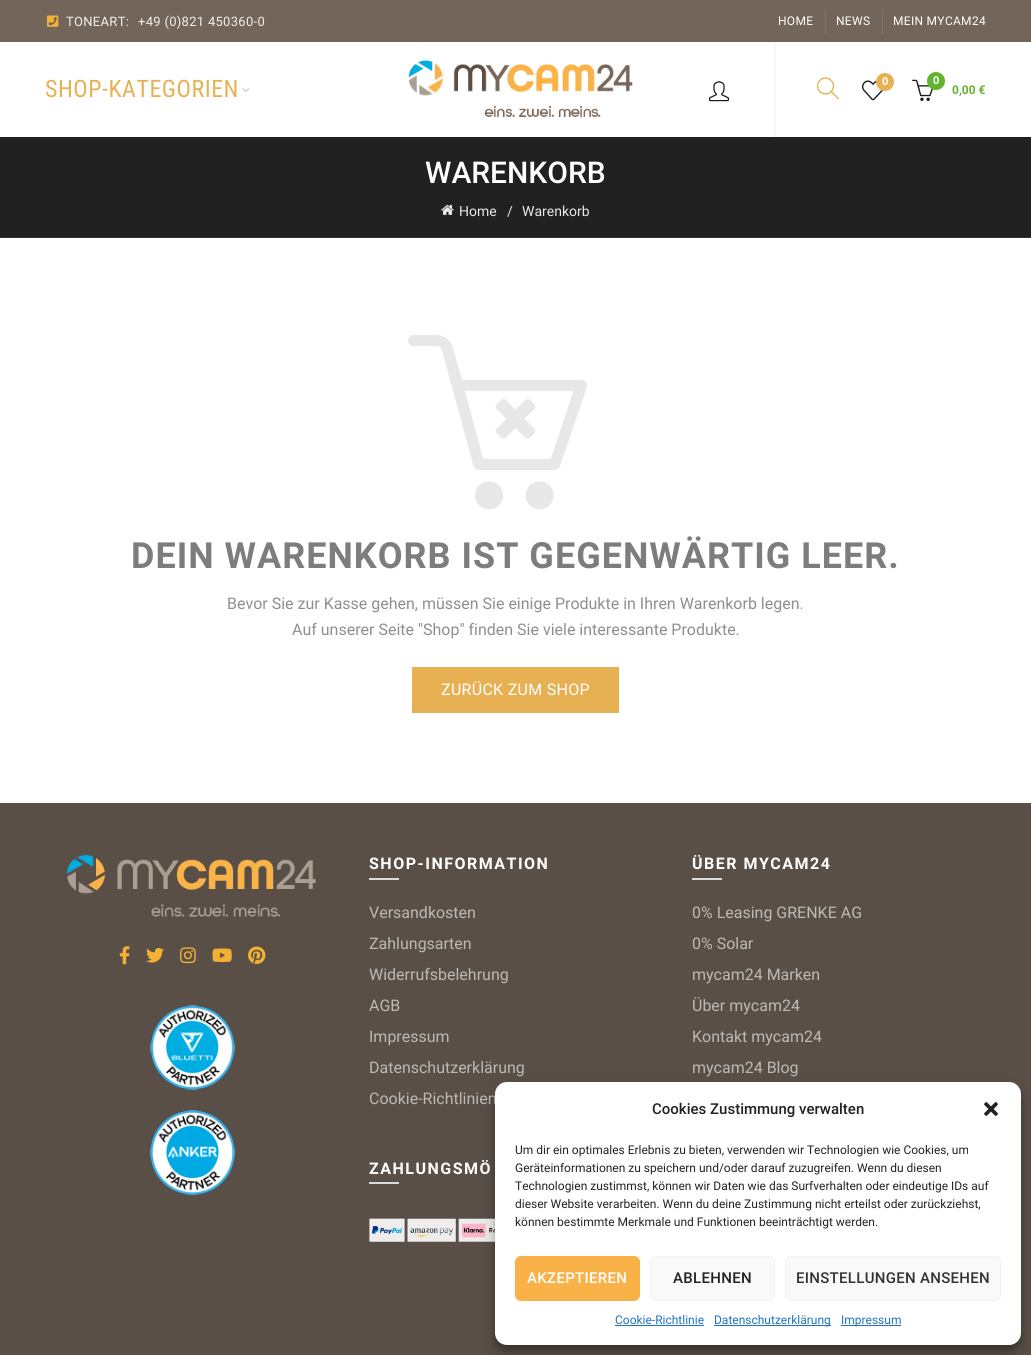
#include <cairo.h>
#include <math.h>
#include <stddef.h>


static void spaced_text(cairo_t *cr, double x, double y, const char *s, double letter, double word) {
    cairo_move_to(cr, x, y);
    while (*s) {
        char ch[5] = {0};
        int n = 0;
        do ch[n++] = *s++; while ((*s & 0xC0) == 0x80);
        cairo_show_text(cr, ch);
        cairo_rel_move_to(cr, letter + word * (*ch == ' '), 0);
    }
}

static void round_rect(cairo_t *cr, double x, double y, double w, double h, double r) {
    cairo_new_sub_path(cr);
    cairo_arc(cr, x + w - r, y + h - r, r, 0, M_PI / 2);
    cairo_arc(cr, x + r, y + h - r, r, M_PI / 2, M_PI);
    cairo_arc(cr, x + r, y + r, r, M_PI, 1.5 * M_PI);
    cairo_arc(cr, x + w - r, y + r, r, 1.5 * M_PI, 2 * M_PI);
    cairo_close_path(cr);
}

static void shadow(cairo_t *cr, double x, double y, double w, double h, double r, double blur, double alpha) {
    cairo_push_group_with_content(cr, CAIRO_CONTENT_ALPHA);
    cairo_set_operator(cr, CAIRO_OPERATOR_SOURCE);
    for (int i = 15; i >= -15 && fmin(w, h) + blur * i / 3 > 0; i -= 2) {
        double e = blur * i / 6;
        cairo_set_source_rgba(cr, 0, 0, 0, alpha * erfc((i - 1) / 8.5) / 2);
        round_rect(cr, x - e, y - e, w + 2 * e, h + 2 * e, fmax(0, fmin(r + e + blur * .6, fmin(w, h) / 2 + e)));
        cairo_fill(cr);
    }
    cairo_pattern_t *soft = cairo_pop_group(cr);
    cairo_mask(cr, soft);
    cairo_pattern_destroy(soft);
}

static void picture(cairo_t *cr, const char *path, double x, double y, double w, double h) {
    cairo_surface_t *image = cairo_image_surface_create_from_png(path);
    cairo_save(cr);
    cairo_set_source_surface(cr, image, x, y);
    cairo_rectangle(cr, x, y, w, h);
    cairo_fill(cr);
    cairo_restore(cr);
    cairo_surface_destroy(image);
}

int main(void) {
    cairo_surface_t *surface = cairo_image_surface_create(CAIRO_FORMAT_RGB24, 1031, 1355);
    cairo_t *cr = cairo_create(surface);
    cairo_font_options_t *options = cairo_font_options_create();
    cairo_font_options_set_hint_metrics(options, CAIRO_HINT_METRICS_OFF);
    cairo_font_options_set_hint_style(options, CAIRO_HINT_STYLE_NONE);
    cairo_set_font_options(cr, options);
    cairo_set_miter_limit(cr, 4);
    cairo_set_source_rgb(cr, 1, 1, 1);
    cairo_paint(cr);
    cairo_set_source_rgb(cr, 0.451, 0.396, 0.353);
    cairo_rectangle(cr, 0, 0, 1031, 42);
    cairo_fill(cr);
    picture(cr, "img1.png", 47, 15, 12, 12);
    cairo_select_font_face(cr, "Roboto", CAIRO_FONT_SLANT_NORMAL, CAIRO_FONT_WEIGHT_NORMAL);
    cairo_set_font_size(cr, 13);
    cairo_set_source_rgb(cr, 0.945, 0.941, 0.937);
    spaced_text(cr, 66, 26, "TONEART:", 0.3, 0);
    spaced_text(cr, 138, 26, "+49 (0)821 450360-0", 0.3, 0);
    cairo_set_font_size(cr, 12);
    cairo_set_source_rgb(cr, 1, 1, 1);
    spaced_text(cr, 778, 25, "HOME", 0.3, 0);
    cairo_set_source_rgb(cr, 0.506, 0.455, 0.42);
    cairo_rectangle(cr, 825, 9, 1, 25);
    cairo_fill(cr);
    cairo_set_source_rgb(cr, 1, 1, 1);
    spaced_text(cr, 836, 25, "NEWS", 0.3, 0);
    cairo_set_source_rgb(cr, 0.506, 0.455, 0.42);
    cairo_rectangle(cr, 882, 9, 1, 25);
    cairo_fill(cr);
    cairo_set_source_rgb(cr, 1, 1, 1);
    spaced_text(cr, 893, 25, "MEIN MYCAM24", 0.3, 0);
    cairo_select_font_face(cr, "Roboto Condensed", CAIRO_FONT_SLANT_NORMAL, CAIRO_FONT_WEIGHT_NORMAL);
    cairo_set_font_size(cr, 24);
    cairo_set_source_rgb(cr, 0.906, 0.694, 0.325);
    spaced_text(cr, 45, 97, "SHOP-KATEGORIEN", 0.5, 0);
    picture(cr, "img2.png", 242, 88, 8, 4);
    picture(cr, "img3.png", 408, 59, 225, 59);
    cairo_set_source_rgb(cr, 0.961, 0.961, 0.961);
    cairo_rectangle(cr, 774, 42, 2, 95);
    cairo_fill(cr);
    picture(cr, "img4.png", 709, 81, 20, 21);
    picture(cr, "img5.png", 816, 77, 23, 23);
    picture(cr, "img6.png", 862, 80, 22, 21);
    cairo_set_source_rgb(cr, 0.906, 0.694, 0.325);
    cairo_arc(cr, 885, 82, 9, 0, 2 * M_PI);
    cairo_fill(cr);
    cairo_select_font_face(cr, "Roboto", CAIRO_FONT_SLANT_NORMAL, CAIRO_FONT_WEIGHT_BOLD);
    cairo_set_font_size(cr, 11);
    cairo_set_source_rgb(cr, 1, 1, 1);
    cairo_move_to(cr, 882, 85);
    cairo_show_text(cr, "0");
    picture(cr, "img7.png", 912, 79, 21, 22);
    cairo_set_source_rgb(cr, 0.392, 0.702, 0.184);
    cairo_arc(cr, 936, 81, 9, 0, 2 * M_PI);
    cairo_fill(cr);
    cairo_set_source_rgb(cr, 1, 1, 1);
    cairo_move_to(cr, 933, 84);
    cairo_show_text(cr, "0");
    cairo_set_font_size(cr, 12);
    cairo_set_source_rgb(cr, 0.392, 0.702, 0.184);
    cairo_move_to(cr, 952, 94);
    cairo_show_text(cr, "0,00 €");
    cairo_set_source_rgb(cr, 0.129, 0.129, 0.129);
    cairo_rectangle(cr, 0, 137, 1031, 100);
    cairo_fill(cr);
    cairo_set_source_rgb(cr, 0.208, 0.208, 0.208);
    cairo_rectangle(cr, 0, 237, 1031, 1);
    cairo_fill(cr);
    cairo_select_font_face(cr, "Roboto Medium", CAIRO_FONT_SLANT_NORMAL, CAIRO_FONT_WEIGHT_NORMAL);
    cairo_set_font_size(cr, 30);
    cairo_set_source_rgb(cr, 1, 1, 1);
    cairo_move_to(cr, 425, 183);
    cairo_show_text(cr, "WARENKORB");
    picture(cr, "img8.png", 441, 204, 13, 11);
    cairo_select_font_face(cr, "Roboto", CAIRO_FONT_SLANT_NORMAL, CAIRO_FONT_WEIGHT_NORMAL);
    cairo_set_font_size(cr, 14);
    cairo_set_source_rgb(cr, 0.914, 0.914, 0.914);
    cairo_move_to(cr, 459, 216);
    cairo_show_text(cr, "Home");
    cairo_move_to(cr, 507, 216);
    cairo_show_text(cr, "/");
    cairo_move_to(cr, 522, 216);
    cairo_show_text(cr, "Warenkorb");
    picture(cr, "img9.png", 408, 335, 179, 175);
    picture(cr, "img10.png", 495, 399, 41, 40);
    cairo_select_font_face(cr, "Roboto", CAIRO_FONT_SLANT_NORMAL, CAIRO_FONT_WEIGHT_BOLD);
    cairo_set_font_size(cr, 36);
    cairo_set_source_rgb(cr, 0.49, 0.49, 0.49);
    spaced_text(cr, 131, 568, "DEIN WARENKORB IST GEGENWÄRTIG LEER.", 1, 0);
    cairo_select_font_face(cr, "Roboto", CAIRO_FONT_SLANT_NORMAL, CAIRO_FONT_WEIGHT_NORMAL);
    cairo_set_font_size(cr, 16);
    cairo_set_source_rgb(cr, 0.557, 0.557, 0.557);
    cairo_move_to(cr, 227, 609);
    cairo_show_text(cr, "Bevor Sie zur Kasse gehen, müssen Sie einige Produkte in Ihren Warenkorb legen.");
    cairo_move_to(cr, 292, 635);
    cairo_show_text(cr, "Auf unserer Seite \"Shop\" finden Sie viele interessante Produkte.");
    cairo_set_source_rgb(cr, 0.906, 0.694, 0.325);
    cairo_rectangle(cr, 412, 667, 207, 46);
    cairo_fill(cr);
    cairo_set_source_rgb(cr, 1, 1, 1);
    spaced_text(cr, 441, 695, "ZURÜCK ZUM SHOP", 0.3, 0);
    cairo_set_source_rgb(cr, 0.349, 0.31, 0.278);
    cairo_rectangle(cr, 0, 803, 1031, 552);
    cairo_fill(cr);
    picture(cr, "img11.png", 67, 854, 250, 63);
    picture(cr, "img12.png", 119, 946, 11, 19);
    picture(cr, "img13.png", 146, 947, 18, 16);
    picture(cr, "img14.png", 180, 947, 16, 17);
    picture(cr, "img15.png", 212, 948, 20, 14);
    picture(cr, "img16.png", 248, 946, 18, 18);
    picture(cr, "img17.png", 150, 1005, 85, 85);
    picture(cr, "img18.png", 150, 1110, 85, 85);
    cairo_select_font_face(cr, "Roboto", CAIRO_FONT_SLANT_NORMAL, CAIRO_FONT_WEIGHT_BOLD);
    cairo_set_source_rgb(cr, 1, 1, 1);
    spaced_text(cr, 369, 869, "SHOP-INFORMATION", 1.5, 0);
    cairo_set_source_rgb(cr, 0.871, 0.863, 0.855);
    cairo_rectangle(cr, 369, 878, 30, 2);
    cairo_fill(cr);
    cairo_select_font_face(cr, "Roboto", CAIRO_FONT_SLANT_NORMAL, CAIRO_FONT_WEIGHT_NORMAL);
    cairo_set_source_rgb(cr, 0.741, 0.725, 0.71);
    cairo_move_to(cr, 369, 918);
    cairo_show_text(cr, "Versandkosten");
    cairo_move_to(cr, 369, 949);
    cairo_show_text(cr, "Zahlungsarten");
    cairo_move_to(cr, 369, 980);
    cairo_show_text(cr, "Widerrufsbelehrung");
    cairo_move_to(cr, 369, 1011);
    cairo_show_text(cr, "AGB");
    cairo_move_to(cr, 369, 1042);
    cairo_show_text(cr, "Impressum");
    cairo_move_to(cr, 369, 1073);
    cairo_show_text(cr, "Datenschutzerklärung");
    cairo_move_to(cr, 369, 1104);
    cairo_show_text(cr, "Cookie-Richtlinien");
    cairo_select_font_face(cr, "Roboto", CAIRO_FONT_SLANT_NORMAL, CAIRO_FONT_WEIGHT_BOLD);
    cairo_set_source_rgb(cr, 1, 1, 1);
    spaced_text(cr, 369, 1174, "ZAHLUNGSMÖ", 1.5, 0);
    cairo_set_source_rgb(cr, 0.871, 0.863, 0.855);
    cairo_rectangle(cr, 369, 1182, 30, 2);
    cairo_fill(cr);
    picture(cr, "img19.png", 369, 1218, 126, 24);
    cairo_set_source_rgb(cr, 1, 1, 1);
    spaced_text(cr, 692, 869, "ÜBER MYCAM24", 1.5, 0);
    cairo_set_source_rgb(cr, 0.871, 0.863, 0.855);
    cairo_rectangle(cr, 692, 878, 30, 2);
    cairo_fill(cr);
    cairo_select_font_face(cr, "Roboto", CAIRO_FONT_SLANT_NORMAL, CAIRO_FONT_WEIGHT_NORMAL);
    cairo_set_source_rgb(cr, 0.741, 0.725, 0.71);
    cairo_move_to(cr, 692, 918);
    cairo_show_text(cr, "0% Leasing GRENKE AG");
    cairo_move_to(cr, 692, 949);
    cairo_show_text(cr, "0% Solar");
    cairo_move_to(cr, 692, 980);
    cairo_show_text(cr, "mycam24 Marken");
    cairo_move_to(cr, 692, 1011);
    cairo_show_text(cr, "Über mycam24");
    cairo_move_to(cr, 692, 1042);
    cairo_show_text(cr, "Kontakt mycam24");
    cairo_move_to(cr, 692, 1073);
    cairo_show_text(cr, "mycam24 Blog");
    cairo_set_source_rgb(cr, 0, 0, 0);
    shadow(cr, 495, 1088, 526, 263, 12, 3, 0.23);
    shadow(cr, 495, 1092, 526, 263, 12, 10, 0.19);
    cairo_set_source_rgb(cr, 1, 1, 1);
    round_rect(cr, 495, 1082, 526, 263, 12);
    cairo_fill(cr);
    cairo_select_font_face(cr, "Roboto Medium", CAIRO_FONT_SLANT_NORMAL, CAIRO_FONT_WEIGHT_NORMAL);
    cairo_set_font_size(cr, 15);
    cairo_set_source_rgb(cr, 0.133, 0.133, 0.133);
    cairo_move_to(cr, 652, 1114);
    cairo_show_text(cr, "Cookies Zustimmung verwalten");
    picture(cr, "img20.png", 984, 1102, 14, 14);
    cairo_select_font_face(cr, "Roboto", CAIRO_FONT_SLANT_NORMAL, CAIRO_FONT_WEIGHT_NORMAL);
    cairo_set_font_size(cr, 12);
    cairo_move_to(cr, 515, 1154);
    cairo_show_text(cr, "Um dir ein optimales Erlebnis zu bieten, verwenden wir Technologien wie Cookies, um");
    cairo_move_to(cr, 515, 1172);
    cairo_show_text(cr, "Geräteinformationen zu speichern und/oder darauf zuzugreifen. Wenn du diesen");
    cairo_move_to(cr, 515, 1190);
    cairo_show_text(cr, "Technologien zustimmst, können wir Daten wie das Surfverhalten oder eindeutige IDs auf");
    cairo_move_to(cr, 515, 1208);
    cairo_show_text(cr, "dieser Website verarbeiten. Wenn du deine Zustimmung nicht erteilst oder zurückziehst,");
    cairo_move_to(cr, 515, 1226);
    cairo_show_text(cr, "können bestimmte Merkmale und Funktionen beeinträchtigt werden.");
    cairo_set_source_rgb(cr, 0.976, 0.698, 0.282);
    round_rect(cr, 515.5, 1256.5, 124, 44, 5.5);
    cairo_fill_preserve(cr);
    cairo_set_line_width(cr, 1);
    cairo_stroke(cr);
    cairo_select_font_face(cr, "Roboto Medium", CAIRO_FONT_SLANT_NORMAL, CAIRO_FONT_WEIGHT_NORMAL);
    cairo_set_font_size(cr, 15);
    cairo_set_source_rgb(cr, 1, 1, 1);
    spaced_text(cr, 527, 1283, "AKZEPTIEREN", 0.3, 0);
    cairo_set_source_rgb(cr, 0.976, 0.976, 0.976);
    round_rect(cr, 650.5, 1256.5, 124, 44, 5.5);
    cairo_fill_preserve(cr);
    cairo_set_source_rgb(cr, 0.949, 0.949, 0.949);
    cairo_stroke(cr);
    cairo_set_source_rgb(cr, 0.133, 0.133, 0.133);
    spaced_text(cr, 673, 1283, "ABLEHNEN", 0.3, 0);
    cairo_set_source_rgb(cr, 0.976, 0.976, 0.976);
    round_rect(cr, 785.5, 1256.5, 215, 44, 5.5);
    cairo_fill_preserve(cr);
    cairo_set_source_rgb(cr, 0.949, 0.949, 0.949);
    cairo_stroke(cr);
    cairo_set_source_rgb(cr, 0.2, 0.2, 0.2);
    spaced_text(cr, 796, 1283, "EINSTELLUNGEN ANSEHEN", 0.3, 0);
    cairo_select_font_face(cr, "Roboto", CAIRO_FONT_SLANT_NORMAL, CAIRO_FONT_WEIGHT_NORMAL);
    cairo_set_font_size(cr, 12);
    cairo_set_source_rgb(cr, 0.118, 0.451, 0.745);
    cairo_move_to(cr, 615, 1324);
    cairo_show_text(cr, "Cookie-Richtlinie");
    cairo_rectangle(cr, 615, 1325, 89, 1);
    cairo_fill(cr);
    cairo_rectangle(cr, 714, 1325, 117, 1);
    cairo_fill(cr);
    cairo_move_to(cr, 714, 1324);
    cairo_show_text(cr, "Datenschutzerklärung");
    cairo_rectangle(cr, 841, 1325, 60, 1);
    cairo_fill(cr);
    cairo_move_to(cr, 841, 1324);
    cairo_show_text(cr, "Impressum");
    cairo_surface_write_to_png(surface, "page.png");
    cairo_font_options_destroy(options);
    cairo_destroy(cr);
    cairo_surface_destroy(surface);
    return 0;
}
